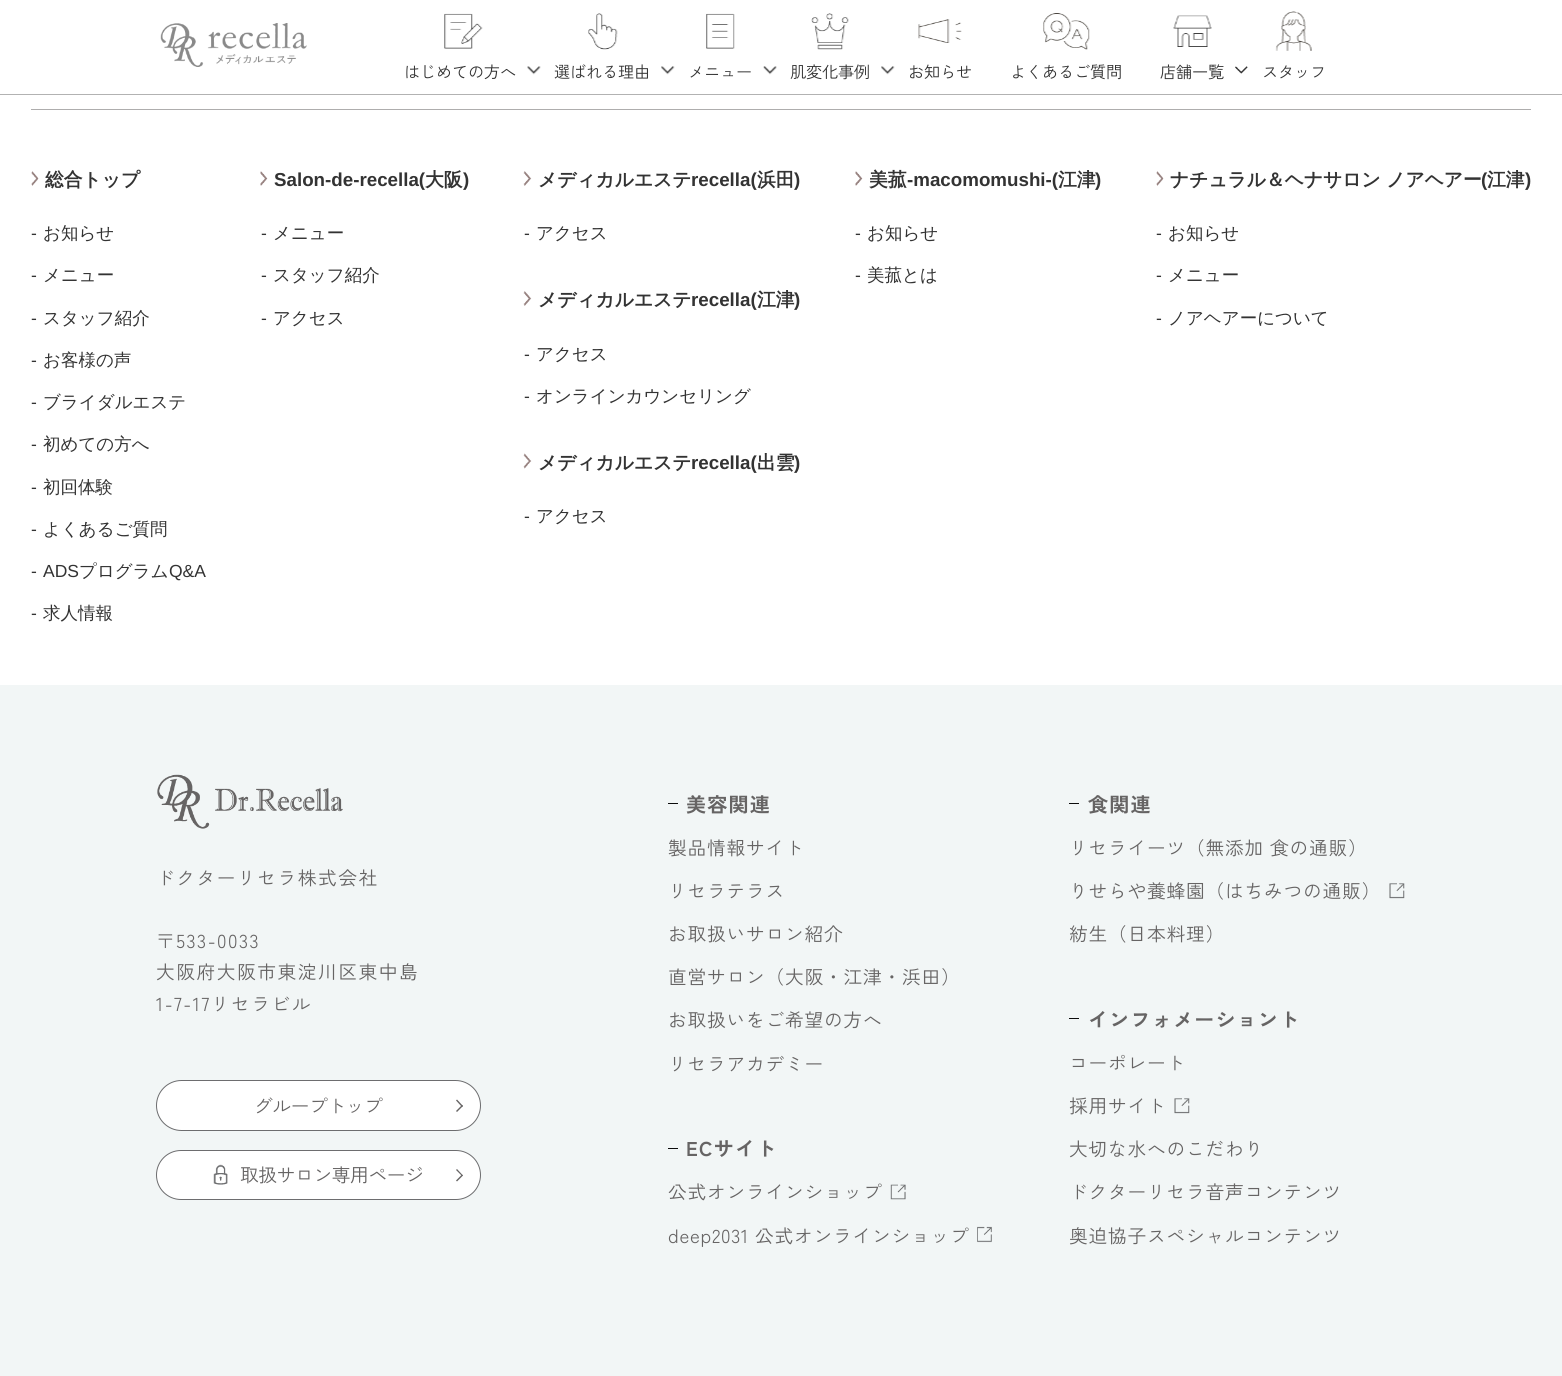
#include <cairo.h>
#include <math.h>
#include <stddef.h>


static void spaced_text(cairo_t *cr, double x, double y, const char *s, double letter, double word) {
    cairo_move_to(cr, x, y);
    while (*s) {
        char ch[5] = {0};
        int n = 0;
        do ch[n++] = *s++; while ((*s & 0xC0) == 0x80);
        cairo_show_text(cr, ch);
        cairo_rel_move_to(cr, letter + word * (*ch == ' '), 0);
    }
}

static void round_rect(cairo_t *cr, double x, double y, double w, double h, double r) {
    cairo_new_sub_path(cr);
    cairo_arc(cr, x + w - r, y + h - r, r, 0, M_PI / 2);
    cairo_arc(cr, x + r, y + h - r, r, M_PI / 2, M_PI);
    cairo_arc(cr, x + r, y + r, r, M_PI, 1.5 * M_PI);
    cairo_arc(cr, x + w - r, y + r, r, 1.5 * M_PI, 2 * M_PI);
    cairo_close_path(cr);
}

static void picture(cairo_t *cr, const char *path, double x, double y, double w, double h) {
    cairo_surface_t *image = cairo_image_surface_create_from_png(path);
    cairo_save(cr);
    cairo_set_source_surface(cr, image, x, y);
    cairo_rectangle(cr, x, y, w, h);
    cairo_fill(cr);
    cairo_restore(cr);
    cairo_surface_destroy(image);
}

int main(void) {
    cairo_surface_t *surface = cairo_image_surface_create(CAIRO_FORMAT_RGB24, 1562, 1376);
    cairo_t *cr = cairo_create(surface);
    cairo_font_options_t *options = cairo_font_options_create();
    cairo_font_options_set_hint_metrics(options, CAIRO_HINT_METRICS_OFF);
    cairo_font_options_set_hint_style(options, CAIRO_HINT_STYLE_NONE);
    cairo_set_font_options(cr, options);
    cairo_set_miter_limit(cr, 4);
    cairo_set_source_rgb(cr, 1, 1, 1);
    cairo_paint(cr);
    cairo_set_source_rgb(cr, 0.698, 0.698, 0.698);
    cairo_rectangle(cr, 0, 94, 1562, 1);
    cairo_fill(cr);
    picture(cr, "img1.png", 160, 23, 147, 44);
    picture(cr, "img2.png", 444, 13, 39, 36);
    cairo_select_font_face(cr, "Zen Kaku Gothic New", CAIRO_FONT_SLANT_NORMAL, CAIRO_FONT_WEIGHT_NORMAL);
    cairo_set_font_size(cr, 16.25);
    cairo_set_source_rgb(cr, 0.2, 0.2, 0.2);
    spaced_text(cr, 404, 78, "はじめての方へ", -0.25, 0);
    picture(cr, "img3.png", 527, 66, 14, 9);
    picture(cr, "img4.png", 588, 13, 30, 37);
    spaced_text(cr, 554, 78, "選ばれる理由", -0.25, 0);
    picture(cr, "img5.png", 661, 66, 14, 9);
    picture(cr, "img6.png", 706, 13, 29, 36);
    spaced_text(cr, 688, 78, "メニュー", -0.25, 0);
    picture(cr, "img7.png", 763, 66, 14, 9);
    picture(cr, "img8.png", 811, 13, 38, 37);
    spaced_text(cr, 790, 78, "肌変化事例", -0.25, 0);
    picture(cr, "img5.png", 881, 66, 14, 9);
    picture(cr, "img9.png", 918, 19, 44, 24);
    spaced_text(cr, 908, 78, "お知らせ", -0.25, 0);
    picture(cr, "img10.png", 1043, 13, 47, 37);
    spaced_text(cr, 1010, 78, "よくあるご質問", -0.25, 0);
    picture(cr, "img11.png", 1173, 15, 39, 32);
    spaced_text(cr, 1160, 78, "店舗一覧", -0.25, 0);
    picture(cr, "img12.png", 1235, 66, 13, 8);
    picture(cr, "img13.png", 1275, 11, 37, 40);
    spaced_text(cr, 1262, 78, "スタッフ", -0.25, 0);
    cairo_set_source_rgb(cr, 0.682, 0.678, 0.678);
    cairo_rectangle(cr, 31, 109, 1500, 1);
    cairo_fill(cr);
    picture(cr, "img14.png", 31, 171, 8, 15);
    cairo_select_font_face(cr, "WenQuanYi Zen Hei", CAIRO_FONT_SLANT_NORMAL, CAIRO_FONT_WEIGHT_BOLD);
    cairo_set_font_size(cr, 18.75);
    cairo_set_source_rgb(cr, 0.2, 0.2, 0.2);
    cairo_move_to(cr, 45, 186);
    cairo_show_text(cr, "総合トップ");
    cairo_select_font_face(cr, "Liberation Sans", CAIRO_FONT_SLANT_NORMAL, CAIRO_FONT_WEIGHT_NORMAL);
    cairo_set_font_size(cr, 17.5);
    cairo_move_to(cr, 31, 239);
    cairo_show_text(cr, "-");
    cairo_select_font_face(cr, "WenQuanYi Zen Hei Medium", CAIRO_FONT_SLANT_NORMAL, CAIRO_FONT_WEIGHT_NORMAL);
    cairo_move_to(cr, 43, 239);
    cairo_show_text(cr, "お知らせ");
    cairo_select_font_face(cr, "Liberation Sans", CAIRO_FONT_SLANT_NORMAL, CAIRO_FONT_WEIGHT_NORMAL);
    cairo_move_to(cr, 31, 281);
    cairo_show_text(cr, "-");
    cairo_select_font_face(cr, "WenQuanYi Zen Hei Medium", CAIRO_FONT_SLANT_NORMAL, CAIRO_FONT_WEIGHT_NORMAL);
    cairo_move_to(cr, 43, 281);
    cairo_show_text(cr, "メニュー");
    cairo_select_font_face(cr, "Liberation Sans", CAIRO_FONT_SLANT_NORMAL, CAIRO_FONT_WEIGHT_NORMAL);
    cairo_move_to(cr, 31, 324);
    cairo_show_text(cr, "-");
    cairo_select_font_face(cr, "WenQuanYi Zen Hei Medium", CAIRO_FONT_SLANT_NORMAL, CAIRO_FONT_WEIGHT_NORMAL);
    cairo_move_to(cr, 43, 324);
    cairo_show_text(cr, "スタッフ紹介");
    cairo_select_font_face(cr, "Liberation Sans", CAIRO_FONT_SLANT_NORMAL, CAIRO_FONT_WEIGHT_NORMAL);
    cairo_move_to(cr, 31, 366);
    cairo_show_text(cr, "-");
    cairo_select_font_face(cr, "WenQuanYi Zen Hei Medium", CAIRO_FONT_SLANT_NORMAL, CAIRO_FONT_WEIGHT_NORMAL);
    cairo_move_to(cr, 43, 366);
    cairo_show_text(cr, "お客様の声");
    cairo_select_font_face(cr, "Liberation Sans", CAIRO_FONT_SLANT_NORMAL, CAIRO_FONT_WEIGHT_NORMAL);
    cairo_move_to(cr, 31, 408);
    cairo_show_text(cr, "-");
    cairo_select_font_face(cr, "WenQuanYi Zen Hei Medium", CAIRO_FONT_SLANT_NORMAL, CAIRO_FONT_WEIGHT_NORMAL);
    cairo_move_to(cr, 43, 408);
    cairo_show_text(cr, "ブライダルエステ");
    cairo_select_font_face(cr, "Liberation Sans", CAIRO_FONT_SLANT_NORMAL, CAIRO_FONT_WEIGHT_NORMAL);
    cairo_move_to(cr, 31, 450);
    cairo_show_text(cr, "-");
    cairo_select_font_face(cr, "WenQuanYi Zen Hei Medium", CAIRO_FONT_SLANT_NORMAL, CAIRO_FONT_WEIGHT_NORMAL);
    cairo_move_to(cr, 43, 450);
    cairo_show_text(cr, "初めての方へ");
    cairo_select_font_face(cr, "Liberation Sans", CAIRO_FONT_SLANT_NORMAL, CAIRO_FONT_WEIGHT_NORMAL);
    cairo_move_to(cr, 31, 493);
    cairo_show_text(cr, "-");
    cairo_select_font_face(cr, "WenQuanYi Zen Hei Medium", CAIRO_FONT_SLANT_NORMAL, CAIRO_FONT_WEIGHT_NORMAL);
    cairo_move_to(cr, 43, 493);
    cairo_show_text(cr, "初回体験");
    cairo_select_font_face(cr, "Liberation Sans", CAIRO_FONT_SLANT_NORMAL, CAIRO_FONT_WEIGHT_NORMAL);
    cairo_move_to(cr, 31, 535);
    cairo_show_text(cr, "-");
    cairo_select_font_face(cr, "WenQuanYi Zen Hei Medium", CAIRO_FONT_SLANT_NORMAL, CAIRO_FONT_WEIGHT_NORMAL);
    cairo_move_to(cr, 43, 535);
    cairo_show_text(cr, "よくあるご質問");
    cairo_select_font_face(cr, "Liberation Sans", CAIRO_FONT_SLANT_NORMAL, CAIRO_FONT_WEIGHT_NORMAL);
    cairo_move_to(cr, 31, 577);
    cairo_show_text(cr, "-");
    cairo_move_to(cr, 43, 577);
    cairo_show_text(cr, "ADS");
    cairo_select_font_face(cr, "WenQuanYi Zen Hei Medium", CAIRO_FONT_SLANT_NORMAL, CAIRO_FONT_WEIGHT_NORMAL);
    cairo_move_to(cr, 79, 577);
    cairo_show_text(cr, "プログラム");
    cairo_select_font_face(cr, "Liberation Sans", CAIRO_FONT_SLANT_NORMAL, CAIRO_FONT_WEIGHT_NORMAL);
    cairo_move_to(cr, 169, 577);
    cairo_show_text(cr, "Q&A");
    cairo_move_to(cr, 31, 619);
    cairo_show_text(cr, "-");
    cairo_select_font_face(cr, "WenQuanYi Zen Hei Medium", CAIRO_FONT_SLANT_NORMAL, CAIRO_FONT_WEIGHT_NORMAL);
    cairo_move_to(cr, 43, 619);
    cairo_show_text(cr, "求人情報");
    picture(cr, "img15.png", 260, 171, 8, 15);
    cairo_select_font_face(cr, "Liberation Sans", CAIRO_FONT_SLANT_NORMAL, CAIRO_FONT_WEIGHT_BOLD);
    cairo_set_font_size(cr, 18.75);
    cairo_move_to(cr, 274, 186);
    cairo_show_text(cr, "Salon-de-recella(");
    cairo_select_font_face(cr, "WenQuanYi Zen Hei", CAIRO_FONT_SLANT_NORMAL, CAIRO_FONT_WEIGHT_BOLD);
    cairo_move_to(cr, 425, 186);
    cairo_show_text(cr, "大阪");
    cairo_select_font_face(cr, "Liberation Sans", CAIRO_FONT_SLANT_NORMAL, CAIRO_FONT_WEIGHT_BOLD);
    cairo_move_to(cr, 463, 186);
    cairo_show_text(cr, ")");
    cairo_select_font_face(cr, "Liberation Sans", CAIRO_FONT_SLANT_NORMAL, CAIRO_FONT_WEIGHT_NORMAL);
    cairo_set_font_size(cr, 17.5);
    cairo_move_to(cr, 261, 239);
    cairo_show_text(cr, "-");
    cairo_select_font_face(cr, "WenQuanYi Zen Hei Medium", CAIRO_FONT_SLANT_NORMAL, CAIRO_FONT_WEIGHT_NORMAL);
    cairo_move_to(cr, 273, 239);
    cairo_show_text(cr, "メニュー");
    cairo_select_font_face(cr, "Liberation Sans", CAIRO_FONT_SLANT_NORMAL, CAIRO_FONT_WEIGHT_NORMAL);
    cairo_move_to(cr, 261, 281);
    cairo_show_text(cr, "-");
    cairo_select_font_face(cr, "WenQuanYi Zen Hei Medium", CAIRO_FONT_SLANT_NORMAL, CAIRO_FONT_WEIGHT_NORMAL);
    cairo_move_to(cr, 273, 281);
    cairo_show_text(cr, "スタッフ紹介");
    cairo_select_font_face(cr, "Liberation Sans", CAIRO_FONT_SLANT_NORMAL, CAIRO_FONT_WEIGHT_NORMAL);
    cairo_move_to(cr, 261, 324);
    cairo_show_text(cr, "-");
    cairo_select_font_face(cr, "WenQuanYi Zen Hei Medium", CAIRO_FONT_SLANT_NORMAL, CAIRO_FONT_WEIGHT_NORMAL);
    cairo_move_to(cr, 273, 324);
    cairo_show_text(cr, "アクセス");
    picture(cr, "img16.png", 523, 171, 9, 15);
    cairo_select_font_face(cr, "WenQuanYi Zen Hei", CAIRO_FONT_SLANT_NORMAL, CAIRO_FONT_WEIGHT_BOLD);
    cairo_set_font_size(cr, 18.75);
    cairo_move_to(cr, 538, 186);
    cairo_show_text(cr, "メディカルエステ");
    cairo_select_font_face(cr, "Liberation Sans", CAIRO_FONT_SLANT_NORMAL, CAIRO_FONT_WEIGHT_BOLD);
    cairo_move_to(cr, 691, 186);
    cairo_show_text(cr, "recella(");
    cairo_select_font_face(cr, "WenQuanYi Zen Hei", CAIRO_FONT_SLANT_NORMAL, CAIRO_FONT_WEIGHT_BOLD);
    cairo_move_to(cr, 757, 186);
    cairo_show_text(cr, "浜田");
    cairo_select_font_face(cr, "Liberation Sans", CAIRO_FONT_SLANT_NORMAL, CAIRO_FONT_WEIGHT_BOLD);
    cairo_move_to(cr, 794, 186);
    cairo_show_text(cr, ")");
    cairo_select_font_face(cr, "Liberation Sans", CAIRO_FONT_SLANT_NORMAL, CAIRO_FONT_WEIGHT_NORMAL);
    cairo_set_font_size(cr, 17.5);
    cairo_move_to(cr, 524, 239);
    cairo_show_text(cr, "-");
    cairo_select_font_face(cr, "WenQuanYi Zen Hei Medium", CAIRO_FONT_SLANT_NORMAL, CAIRO_FONT_WEIGHT_NORMAL);
    cairo_move_to(cr, 536, 239);
    cairo_show_text(cr, "アクセス");
    picture(cr, "img16.png", 523, 291, 9, 15);
    cairo_select_font_face(cr, "WenQuanYi Zen Hei", CAIRO_FONT_SLANT_NORMAL, CAIRO_FONT_WEIGHT_BOLD);
    cairo_set_font_size(cr, 18.75);
    cairo_move_to(cr, 538, 306);
    cairo_show_text(cr, "メディカルエステ");
    cairo_select_font_face(cr, "Liberation Sans", CAIRO_FONT_SLANT_NORMAL, CAIRO_FONT_WEIGHT_BOLD);
    cairo_move_to(cr, 691, 306);
    cairo_show_text(cr, "recella(");
    cairo_select_font_face(cr, "WenQuanYi Zen Hei", CAIRO_FONT_SLANT_NORMAL, CAIRO_FONT_WEIGHT_BOLD);
    cairo_move_to(cr, 757, 306);
    cairo_show_text(cr, "江津");
    cairo_select_font_face(cr, "Liberation Sans", CAIRO_FONT_SLANT_NORMAL, CAIRO_FONT_WEIGHT_BOLD);
    cairo_move_to(cr, 794, 306);
    cairo_show_text(cr, ")");
    cairo_select_font_face(cr, "Liberation Sans", CAIRO_FONT_SLANT_NORMAL, CAIRO_FONT_WEIGHT_NORMAL);
    cairo_set_font_size(cr, 17.5);
    cairo_move_to(cr, 524, 360);
    cairo_show_text(cr, "-");
    cairo_select_font_face(cr, "WenQuanYi Zen Hei Medium", CAIRO_FONT_SLANT_NORMAL, CAIRO_FONT_WEIGHT_NORMAL);
    cairo_move_to(cr, 536, 360);
    cairo_show_text(cr, "アクセス");
    cairo_select_font_face(cr, "Liberation Sans", CAIRO_FONT_SLANT_NORMAL, CAIRO_FONT_WEIGHT_NORMAL);
    cairo_move_to(cr, 524, 402);
    cairo_show_text(cr, "-");
    cairo_select_font_face(cr, "WenQuanYi Zen Hei Medium", CAIRO_FONT_SLANT_NORMAL, CAIRO_FONT_WEIGHT_NORMAL);
    cairo_move_to(cr, 536, 402);
    cairo_show_text(cr, "オンラインカウンセリング");
    picture(cr, "img17.png", 523, 453, 9, 16);
    cairo_select_font_face(cr, "WenQuanYi Zen Hei", CAIRO_FONT_SLANT_NORMAL, CAIRO_FONT_WEIGHT_BOLD);
    cairo_set_font_size(cr, 18.75);
    cairo_move_to(cr, 538, 469);
    cairo_show_text(cr, "メディカルエステ");
    cairo_select_font_face(cr, "Liberation Sans", CAIRO_FONT_SLANT_NORMAL, CAIRO_FONT_WEIGHT_BOLD);
    cairo_move_to(cr, 691, 469);
    cairo_show_text(cr, "recella(");
    cairo_select_font_face(cr, "WenQuanYi Zen Hei", CAIRO_FONT_SLANT_NORMAL, CAIRO_FONT_WEIGHT_BOLD);
    cairo_move_to(cr, 757, 469);
    cairo_show_text(cr, "出雲");
    cairo_select_font_face(cr, "Liberation Sans", CAIRO_FONT_SLANT_NORMAL, CAIRO_FONT_WEIGHT_BOLD);
    cairo_move_to(cr, 794, 469);
    cairo_show_text(cr, ")");
    cairo_select_font_face(cr, "Liberation Sans", CAIRO_FONT_SLANT_NORMAL, CAIRO_FONT_WEIGHT_NORMAL);
    cairo_set_font_size(cr, 17.5);
    cairo_move_to(cr, 524, 522);
    cairo_show_text(cr, "-");
    cairo_select_font_face(cr, "WenQuanYi Zen Hei Medium", CAIRO_FONT_SLANT_NORMAL, CAIRO_FONT_WEIGHT_NORMAL);
    cairo_move_to(cr, 536, 522);
    cairo_show_text(cr, "アクセス");
    picture(cr, "img15.png", 855, 171, 8, 15);
    cairo_select_font_face(cr, "WenQuanYi Zen Hei", CAIRO_FONT_SLANT_NORMAL, CAIRO_FONT_WEIGHT_BOLD);
    cairo_set_font_size(cr, 18.75);
    cairo_move_to(cr, 869, 186);
    cairo_show_text(cr, "美菰");
    cairo_select_font_face(cr, "Liberation Sans", CAIRO_FONT_SLANT_NORMAL, CAIRO_FONT_WEIGHT_BOLD);
    cairo_move_to(cr, 907, 186);
    cairo_show_text(cr, "-macomomushi-(");
    cairo_select_font_face(cr, "WenQuanYi Zen Hei", CAIRO_FONT_SLANT_NORMAL, CAIRO_FONT_WEIGHT_BOLD);
    cairo_move_to(cr, 1058, 186);
    cairo_show_text(cr, "江津");
    cairo_select_font_face(cr, "Liberation Sans", CAIRO_FONT_SLANT_NORMAL, CAIRO_FONT_WEIGHT_BOLD);
    cairo_move_to(cr, 1095, 186);
    cairo_show_text(cr, ")");
    cairo_select_font_face(cr, "Liberation Sans", CAIRO_FONT_SLANT_NORMAL, CAIRO_FONT_WEIGHT_NORMAL);
    cairo_set_font_size(cr, 17.5);
    cairo_move_to(cr, 855, 239);
    cairo_show_text(cr, "-");
    cairo_select_font_face(cr, "WenQuanYi Zen Hei Medium", CAIRO_FONT_SLANT_NORMAL, CAIRO_FONT_WEIGHT_NORMAL);
    cairo_move_to(cr, 867, 239);
    cairo_show_text(cr, "お知らせ");
    cairo_select_font_face(cr, "Liberation Sans", CAIRO_FONT_SLANT_NORMAL, CAIRO_FONT_WEIGHT_NORMAL);
    cairo_move_to(cr, 855, 281);
    cairo_show_text(cr, "-");
    cairo_select_font_face(cr, "WenQuanYi Zen Hei Medium", CAIRO_FONT_SLANT_NORMAL, CAIRO_FONT_WEIGHT_NORMAL);
    cairo_move_to(cr, 867, 281);
    cairo_show_text(cr, "美菰とは");
    picture(cr, "img14.png", 1156, 171, 8, 15);
    cairo_select_font_face(cr, "WenQuanYi Zen Hei", CAIRO_FONT_SLANT_NORMAL, CAIRO_FONT_WEIGHT_BOLD);
    cairo_set_font_size(cr, 18.75);
    cairo_move_to(cr, 1170, 186);
    cairo_show_text(cr, "ナチュラル＆ヘナサロン ノアヘアー");
    cairo_select_font_face(cr, "Liberation Sans", CAIRO_FONT_SLANT_NORMAL, CAIRO_FONT_WEIGHT_BOLD);
    cairo_move_to(cr, 1481, 186);
    cairo_show_text(cr, "(");
    cairo_select_font_face(cr, "WenQuanYi Zen Hei", CAIRO_FONT_SLANT_NORMAL, CAIRO_FONT_WEIGHT_BOLD);
    cairo_move_to(cr, 1487, 186);
    cairo_show_text(cr, "江津");
    cairo_select_font_face(cr, "Liberation Sans", CAIRO_FONT_SLANT_NORMAL, CAIRO_FONT_WEIGHT_BOLD);
    cairo_move_to(cr, 1525, 186);
    cairo_show_text(cr, ")");
    cairo_select_font_face(cr, "Liberation Sans", CAIRO_FONT_SLANT_NORMAL, CAIRO_FONT_WEIGHT_NORMAL);
    cairo_set_font_size(cr, 17.5);
    cairo_move_to(cr, 1156, 239);
    cairo_show_text(cr, "-");
    cairo_select_font_face(cr, "WenQuanYi Zen Hei Medium", CAIRO_FONT_SLANT_NORMAL, CAIRO_FONT_WEIGHT_NORMAL);
    cairo_move_to(cr, 1168, 239);
    cairo_show_text(cr, "お知らせ");
    cairo_select_font_face(cr, "Liberation Sans", CAIRO_FONT_SLANT_NORMAL, CAIRO_FONT_WEIGHT_NORMAL);
    cairo_move_to(cr, 1156, 281);
    cairo_show_text(cr, "-");
    cairo_select_font_face(cr, "WenQuanYi Zen Hei Medium", CAIRO_FONT_SLANT_NORMAL, CAIRO_FONT_WEIGHT_NORMAL);
    cairo_move_to(cr, 1168, 281);
    cairo_show_text(cr, "メニュー");
    cairo_select_font_face(cr, "Liberation Sans", CAIRO_FONT_SLANT_NORMAL, CAIRO_FONT_WEIGHT_NORMAL);
    cairo_move_to(cr, 1156, 324);
    cairo_show_text(cr, "-");
    cairo_select_font_face(cr, "WenQuanYi Zen Hei Medium", CAIRO_FONT_SLANT_NORMAL, CAIRO_FONT_WEIGHT_NORMAL);
    cairo_move_to(cr, 1168, 324);
    cairo_show_text(cr, "ノアヘアーについて");
    cairo_set_source_rgb(cr, 0.949, 0.961, 0.961);
    cairo_rectangle(cr, 0, 685, 1562, 691);
    cairo_fill(cr);
    picture(cr, "img18.png", 157, 774, 186, 55);
    cairo_select_font_face(cr, "Zen Kaku Gothic New", CAIRO_FONT_SLANT_NORMAL, CAIRO_FONT_WEIGHT_NORMAL);
    cairo_set_font_size(cr, 18.75);
    cairo_set_source_rgb(cr, 0.4, 0.392, 0.392);
    spaced_text(cr, 156, 885, "ドクターリセラ株式会社", 1.5, 0);
    spaced_text(cr, 156, 948, "〒533-0033", 1.5, 0);
    spaced_text(cr, 156, 979, "大阪府大阪市東淀川区東中島", 1.5, 0);
    spaced_text(cr, 156, 1011, "1-7-17リセラビル", 1.5, 0);
    cairo_set_source_rgb(cr, 1, 1, 1);
    round_rect(cr, 156.5, 1080.5, 324, 50, 25);
    cairo_fill_preserve(cr);
    cairo_set_source_rgb(cr, 0.427, 0.427, 0.435);
    cairo_set_line_width(cr, 1);
    cairo_stroke(cr);
    cairo_set_source_rgb(cr, 0.4, 0.392, 0.392);
    spaced_text(cr, 254, 1113, "グループトップ", -0.4, 0);
    cairo_new_path(cr);
    cairo_move_to(cr, 456, 1100.5);
    cairo_line_to(cr, 457, 1099.5);
    cairo_line_to(cr, 463, 1106);
    cairo_line_to(cr, 462, 1107);
    cairo_close_path(cr);
    cairo_fill(cr);
    cairo_new_path(cr);
    cairo_move_to(cr, 456, 1111);
    cairo_line_to(cr, 462, 1105);
    cairo_line_to(cr, 463, 1106);
    cairo_line_to(cr, 457, 1112);
    cairo_close_path(cr);
    cairo_fill(cr);
    cairo_set_source_rgb(cr, 1, 1, 1);
    round_rect(cr, 156.5, 1150.5, 324, 49, 24.5);
    cairo_fill_preserve(cr);
    cairo_set_source_rgb(cr, 0.427, 0.427, 0.435);
    cairo_stroke(cr);
    picture(cr, "img19.png", 213, 1164, 15, 21);
    cairo_set_source_rgb(cr, 0.4, 0.392, 0.392);
    spaced_text(cr, 240, 1182, "取扱サロン専用ページ", -0.4, 0);
    cairo_new_path(cr);
    cairo_move_to(cr, 456, 1170);
    cairo_line_to(cr, 457, 1169);
    cairo_line_to(cr, 463, 1175.5);
    cairo_line_to(cr, 462, 1176);
    cairo_close_path(cr);
    cairo_fill(cr);
    cairo_new_path(cr);
    cairo_move_to(cr, 456, 1180.5);
    cairo_line_to(cr, 462, 1174.5);
    cairo_line_to(cr, 463, 1175.5);
    cairo_line_to(cr, 457, 1181.5);
    cairo_close_path(cr);
    cairo_fill(cr);
    cairo_set_source_rgb(cr, 0.047, 0.047, 0.047);
    cairo_rectangle(cr, 668, 803, 10, 1);
    cairo_fill(cr);
    cairo_select_font_face(cr, "Zen Kaku Gothic New", CAIRO_FONT_SLANT_NORMAL, CAIRO_FONT_WEIGHT_BOLD);
    cairo_set_font_size(cr, 20);
    cairo_set_source_rgb(cr, 0.4, 0.392, 0.392);
    spaced_text(cr, 686, 812, "美容関連", 1.25, 0);
    cairo_select_font_face(cr, "Zen Kaku Gothic New", CAIRO_FONT_SLANT_NORMAL, CAIRO_FONT_WEIGHT_NORMAL);
    cairo_set_font_size(cr, 18.75);
    spaced_text(cr, 668, 855, "製品情報サイト", 0.75, 0);
    spaced_text(cr, 668, 898, "リセラテラス", 0.75, 0);
    spaced_text(cr, 668, 941, "お取扱いサロン紹介", 0.75, 0);
    spaced_text(cr, 668, 984, "直営サロン（大阪・江津・浜田）", 0.75, 0);
    spaced_text(cr, 668, 1027, "お取扱いをご希望の方へ", 0.75, 0);
    spaced_text(cr, 668, 1071, "リセラアカデミー", 0.75, 0);
    cairo_set_source_rgb(cr, 0.047, 0.047, 0.047);
    cairo_rectangle(cr, 668, 1148, 10, 1);
    cairo_fill(cr);
    cairo_select_font_face(cr, "Zen Kaku Gothic New", CAIRO_FONT_SLANT_NORMAL, CAIRO_FONT_WEIGHT_BOLD);
    cairo_set_font_size(cr, 20);
    cairo_set_source_rgb(cr, 0.4, 0.392, 0.392);
    spaced_text(cr, 686, 1156, "ECサイト", 1.25, 0);
    cairo_select_font_face(cr, "Zen Kaku Gothic New", CAIRO_FONT_SLANT_NORMAL, CAIRO_FONT_WEIGHT_NORMAL);
    cairo_set_font_size(cr, 18.75);
    spaced_text(cr, 668, 1199, "公式オンラインショップ", 0.75, 0);
    picture(cr, "img20.png", 890, 1184, 16, 16);
    spaced_text(cr, 668, 1243, "deep2031 公式オンラインショップ", 0.75, 0);
    picture(cr, "img21.png", 977, 1226, 15, 17);
    cairo_set_source_rgb(cr, 0.047, 0.047, 0.047);
    cairo_rectangle(cr, 1069, 803, 10, 1);
    cairo_fill(cr);
    cairo_select_font_face(cr, "Zen Kaku Gothic New", CAIRO_FONT_SLANT_NORMAL, CAIRO_FONT_WEIGHT_BOLD);
    cairo_set_font_size(cr, 20);
    cairo_set_source_rgb(cr, 0.4, 0.392, 0.392);
    spaced_text(cr, 1088, 812, "食関連", 1.25, 0);
    cairo_select_font_face(cr, "Zen Kaku Gothic New", CAIRO_FONT_SLANT_NORMAL, CAIRO_FONT_WEIGHT_NORMAL);
    cairo_set_font_size(cr, 18.75);
    spaced_text(cr, 1069, 855, "リセライーツ（無添加 食の通販）", 0.75, 0);
    spaced_text(cr, 1069, 898, "りせらや養蜂園（はちみつの通販）", 0.75, 0);
    picture(cr, "img22.png", 1389, 883, 16, 16);
    spaced_text(cr, 1069, 941, "紡生（日本料理）", 0.75, 0);
    cairo_set_source_rgb(cr, 0.047, 0.047, 0.047);
    cairo_rectangle(cr, 1069, 1018, 10, 1);
    cairo_fill(cr);
    cairo_select_font_face(cr, "Zen Kaku Gothic New", CAIRO_FONT_SLANT_NORMAL, CAIRO_FONT_WEIGHT_BOLD);
    cairo_set_font_size(cr, 20);
    cairo_set_source_rgb(cr, 0.4, 0.392, 0.392);
    spaced_text(cr, 1088, 1027, "インフォメーショント", 1.25, 0);
    cairo_select_font_face(cr, "Zen Kaku Gothic New", CAIRO_FONT_SLANT_NORMAL, CAIRO_FONT_WEIGHT_NORMAL);
    cairo_set_font_size(cr, 18.75);
    spaced_text(cr, 1069, 1070, "コーポレート", 0.75, 0);
    spaced_text(cr, 1069, 1113, "採用サイト", 0.75, 0);
    picture(cr, "img22.png", 1174, 1098, 16, 16);
    spaced_text(cr, 1069, 1156, "大切な水へのこだわり", 0.75, 0);
    spaced_text(cr, 1069, 1199, "ドクターリセラ音声コンテンツ", 0.75, 0);
    spaced_text(cr, 1069, 1243, "奥迫協子スペシャルコンテンツ", 0.75, 0);
    cairo_surface_write_to_png(surface, "page.png");
    cairo_font_options_destroy(options);
    cairo_destroy(cr);
    cairo_surface_destroy(surface);
    return 0;
}
